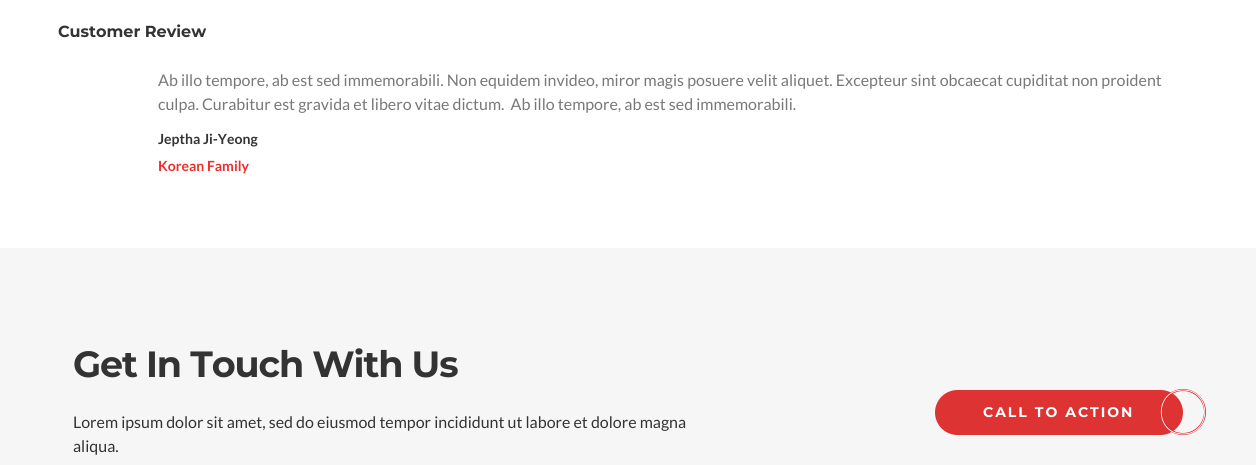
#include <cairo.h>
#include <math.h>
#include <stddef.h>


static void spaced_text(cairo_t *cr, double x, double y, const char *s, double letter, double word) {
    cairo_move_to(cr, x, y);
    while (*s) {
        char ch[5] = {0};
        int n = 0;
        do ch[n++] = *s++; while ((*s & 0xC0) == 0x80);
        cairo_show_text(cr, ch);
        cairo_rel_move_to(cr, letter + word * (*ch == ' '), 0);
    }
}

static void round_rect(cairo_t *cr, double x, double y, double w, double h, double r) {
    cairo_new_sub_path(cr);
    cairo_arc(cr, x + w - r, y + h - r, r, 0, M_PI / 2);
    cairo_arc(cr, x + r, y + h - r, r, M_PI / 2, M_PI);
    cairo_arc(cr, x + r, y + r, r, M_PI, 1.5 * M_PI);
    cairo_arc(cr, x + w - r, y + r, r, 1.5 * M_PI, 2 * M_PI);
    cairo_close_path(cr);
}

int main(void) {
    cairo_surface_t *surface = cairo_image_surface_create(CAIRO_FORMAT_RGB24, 1256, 465);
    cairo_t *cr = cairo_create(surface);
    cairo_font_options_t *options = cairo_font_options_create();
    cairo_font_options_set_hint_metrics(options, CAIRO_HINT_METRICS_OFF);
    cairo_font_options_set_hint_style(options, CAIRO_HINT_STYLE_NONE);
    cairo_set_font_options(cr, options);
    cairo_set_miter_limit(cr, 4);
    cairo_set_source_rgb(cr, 1, 1, 1);
    cairo_paint(cr);
    cairo_select_font_face(cr, "Montserrat", CAIRO_FONT_SLANT_NORMAL, CAIRO_FONT_WEIGHT_BOLD);
    cairo_set_font_size(cr, 16);
    cairo_set_source_rgb(cr, 0.2, 0.2, 0.2);
    cairo_move_to(cr, 58, 37);
    cairo_show_text(cr, "Customer Review");
    cairo_select_font_face(cr, "Lato", CAIRO_FONT_SLANT_NORMAL, CAIRO_FONT_WEIGHT_NORMAL);
    cairo_set_source_rgb(cr, 0.471, 0.471, 0.471);
    cairo_move_to(cr, 158, 86);
    cairo_show_text(cr, "Ab illo tempore, ab est sed immemorabili. Non equidem invideo, miror magis posuere velit aliquet. Excepteur sint obcaecat cupiditat non proident");
    cairo_move_to(cr, 158, 110);
    cairo_show_text(cr, "culpa. Curabitur est gravida et libero vitae dictum.  Ab illo tempore, ab est sed immemorabili.");
    cairo_select_font_face(cr, "Lato", CAIRO_FONT_SLANT_NORMAL, CAIRO_FONT_WEIGHT_BOLD);
    cairo_set_font_size(cr, 14);
    cairo_set_source_rgb(cr, 0.2, 0.2, 0.2);
    cairo_move_to(cr, 158, 144);
    cairo_show_text(cr, "Jeptha Ji-Yeong");
    cairo_set_source_rgb(cr, 0.941, 0.176, 0.169);
    cairo_move_to(cr, 158, 171);
    cairo_show_text(cr, "Korean Family");
    cairo_set_source_rgb(cr, 0.961, 0.961, 0.961);
    cairo_rectangle(cr, 0, 248, 1256, 217);
    cairo_fill(cr);
    cairo_select_font_face(cr, "Montserrat", CAIRO_FONT_SLANT_NORMAL, CAIRO_FONT_WEIGHT_BOLD);
    cairo_set_font_size(cr, 36.5);
    cairo_set_source_rgb(cr, 0.2, 0.2, 0.2);
    spaced_text(cr, 73, 377, "Get In Touch With Us", -1.1, 0);
    cairo_select_font_face(cr, "Lato", CAIRO_FONT_SLANT_NORMAL, CAIRO_FONT_WEIGHT_NORMAL);
    cairo_set_font_size(cr, 16);
    cairo_move_to(cr, 73, 428);
    cairo_show_text(cr, "Lorem ipsum dolor sit amet, sed do eiusmod tempor incididunt ut labore et dolore magna");
    cairo_move_to(cr, 73, 452);
    cairo_show_text(cr, "aliqua.");
    cairo_set_source_rgb(cr, 0.867, 0.2, 0.2);
    round_rect(cr, 935, 390, 248, 45, 22.5);
    cairo_fill(cr);
    cairo_select_font_face(cr, "Montserrat", CAIRO_FONT_SLANT_NORMAL, CAIRO_FONT_WEIGHT_BOLD);
    cairo_set_font_size(cr, 14);
    cairo_set_source_rgb(cr, 1, 1, 1);
    spaced_text(cr, 983, 417, "CALL TO ACTION", 2, 0);
    cairo_new_path(cr);
    cairo_arc(cr, 1183, 412, 22, 0, 2 * M_PI);
    cairo_set_source_rgb(cr, 0.886, 0.118, 0.137);
    cairo_stroke(cr);
    cairo_new_path(cr);
    cairo_move_to(cr, 1183, 390);
    cairo_curve_to(cr, 1212, 390, 1212, 434, 1183, 434);
    cairo_curve_to(cr, 1154, 434, 1154, 390, 1183, 390);
    cairo_set_source_rgb(cr, 1, 1, 1);
    cairo_set_line_width(cr, 0.9);
    cairo_stroke(cr);
    cairo_surface_write_to_png(surface, "page.png");
    cairo_font_options_destroy(options);
    cairo_destroy(cr);
    cairo_surface_destroy(surface);
    return 0;
}
